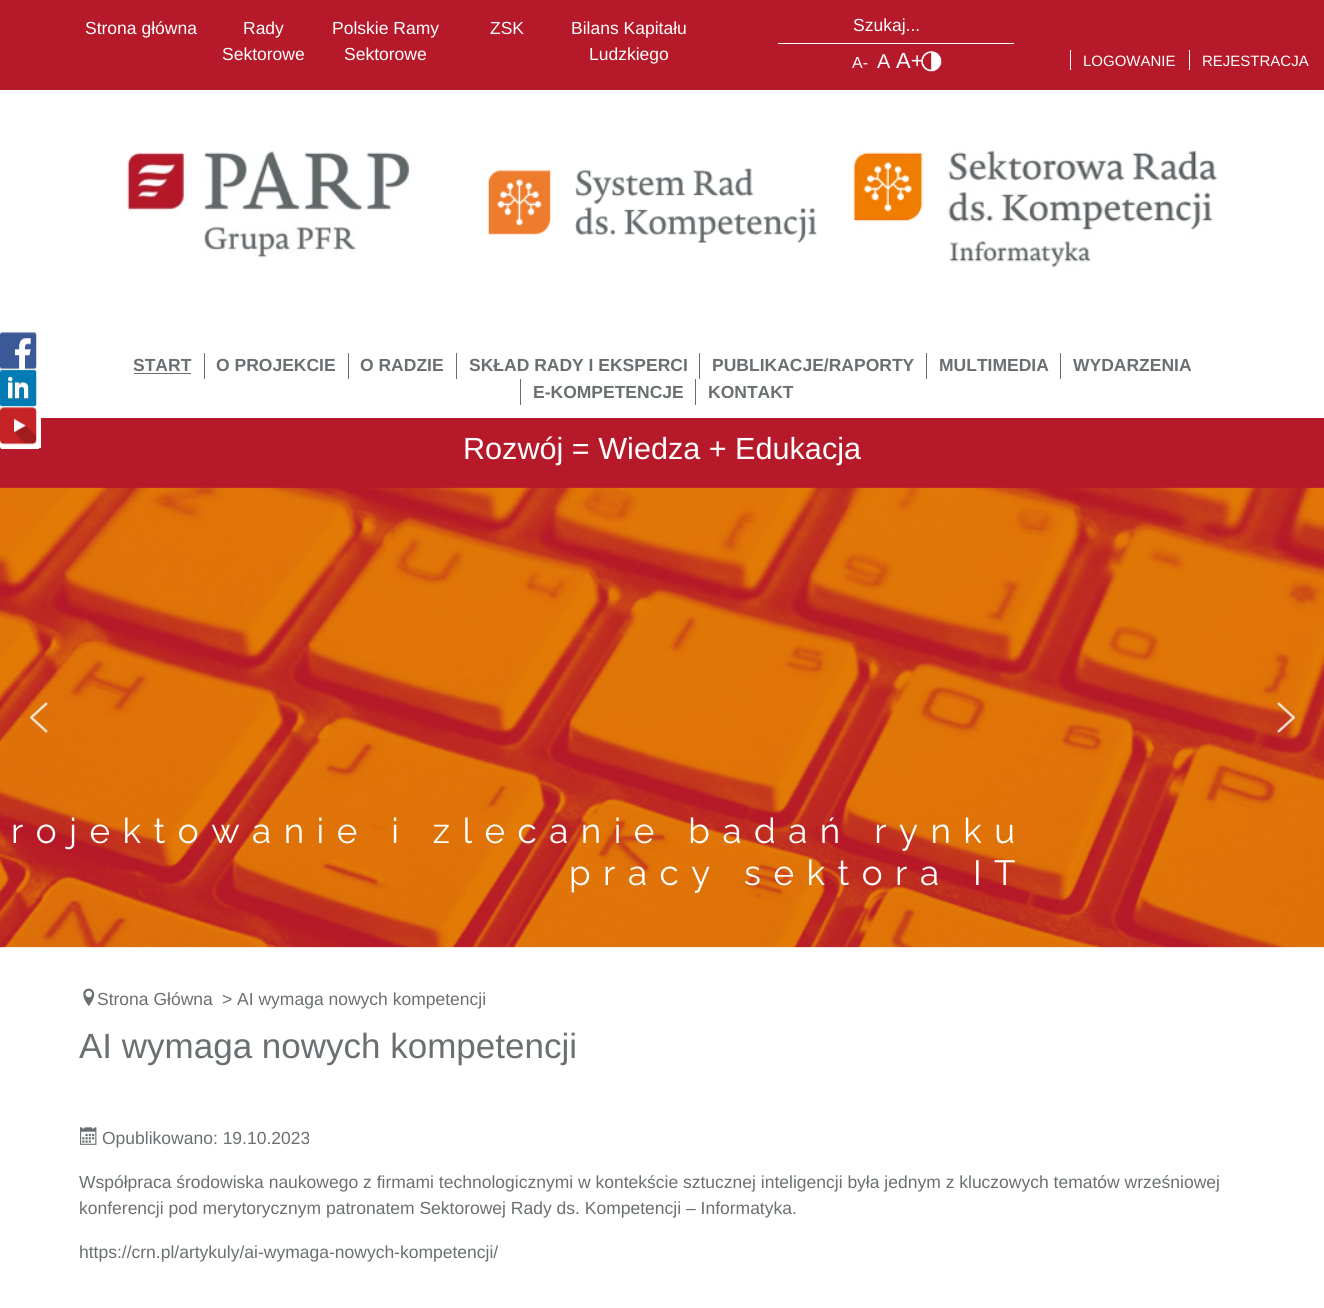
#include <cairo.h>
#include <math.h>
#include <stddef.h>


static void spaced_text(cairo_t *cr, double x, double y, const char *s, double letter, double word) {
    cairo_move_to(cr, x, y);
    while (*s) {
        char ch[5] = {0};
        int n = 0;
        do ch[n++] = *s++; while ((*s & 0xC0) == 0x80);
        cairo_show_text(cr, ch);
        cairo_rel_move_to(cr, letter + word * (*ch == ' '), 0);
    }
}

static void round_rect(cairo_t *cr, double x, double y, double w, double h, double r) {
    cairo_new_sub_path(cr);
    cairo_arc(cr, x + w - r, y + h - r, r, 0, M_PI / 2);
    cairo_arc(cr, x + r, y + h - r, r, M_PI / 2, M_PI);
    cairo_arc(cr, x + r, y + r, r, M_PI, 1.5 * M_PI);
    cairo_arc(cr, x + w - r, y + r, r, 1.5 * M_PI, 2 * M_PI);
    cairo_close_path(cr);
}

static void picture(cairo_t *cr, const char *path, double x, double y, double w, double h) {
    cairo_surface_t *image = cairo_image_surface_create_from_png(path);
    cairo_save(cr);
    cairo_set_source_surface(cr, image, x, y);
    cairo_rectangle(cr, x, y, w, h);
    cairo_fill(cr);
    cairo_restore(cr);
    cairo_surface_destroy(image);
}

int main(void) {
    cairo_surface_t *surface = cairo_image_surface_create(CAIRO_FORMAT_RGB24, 1324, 1308);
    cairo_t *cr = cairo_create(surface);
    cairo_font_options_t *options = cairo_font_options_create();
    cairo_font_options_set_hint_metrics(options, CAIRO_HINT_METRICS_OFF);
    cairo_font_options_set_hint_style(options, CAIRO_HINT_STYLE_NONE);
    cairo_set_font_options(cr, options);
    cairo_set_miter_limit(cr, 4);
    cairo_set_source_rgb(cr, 1, 1, 1);
    cairo_paint(cr);
    cairo_set_source_rgb(cr, 0.714, 0.098, 0.161);
    cairo_rectangle(cr, 0, 418, 1324, 70);
    cairo_fill(cr);
    cairo_set_source_rgb(cr, 1, 1, 1);
    round_rect(cr, 0, 328, 40, 121, 2.5);
    cairo_fill(cr);
    cairo_rectangle(cr, 39, 418, 2, 30);
    cairo_fill(cr);
    cairo_rectangle(cr, 1, 448, 38, 1);
    cairo_fill(cr);
    picture(cr, "img1.png", 0, 332, 37, 38);
    picture(cr, "img2.png", 0, 370, 37, 37);
    picture(cr, "img3.png", 0, 407, 37, 38);
    cairo_set_source_rgb(cr, 0.714, 0.098, 0.161);
    cairo_rectangle(cr, 0, 0, 1324, 90);
    cairo_fill(cr);
    cairo_select_font_face(cr, "Liberation Sans", CAIRO_FONT_SLANT_NORMAL, CAIRO_FONT_WEIGHT_NORMAL);
    cairo_set_font_size(cr, 17.5);
    cairo_set_source_rgb(cr, 1, 1, 1);
    cairo_move_to(cr, 85, 34);
    cairo_show_text(cr, "Strona główna");
    cairo_move_to(cr, 243, 34);
    cairo_show_text(cr, "Rady");
    cairo_move_to(cr, 222, 60);
    cairo_show_text(cr, "Sektorowe");
    cairo_move_to(cr, 332, 34);
    cairo_show_text(cr, "Polskie Ramy");
    cairo_move_to(cr, 344, 60);
    cairo_show_text(cr, "Sektorowe");
    cairo_move_to(cr, 490, 34);
    cairo_show_text(cr, "ZSK");
    cairo_move_to(cr, 571, 34);
    cairo_show_text(cr, "Bilans Kapitału");
    cairo_move_to(cr, 589, 60);
    cairo_show_text(cr, "Ludzkiego");
    cairo_rectangle(cr, 778, 43, 236, 1);
    cairo_fill(cr);
    cairo_move_to(cr, 853, 31);
    cairo_show_text(cr, "Szukaj...");
    cairo_set_font_size(cr, 16);
    cairo_move_to(cr, 852, 68);
    cairo_show_text(cr, "A-");
    cairo_set_font_size(cr, 20);
    cairo_move_to(cr, 877, 68);
    cairo_show_text(cr, "A");
    cairo_set_font_size(cr, 22);
    cairo_move_to(cr, 896, 68);
    cairo_show_text(cr, "A+");
    picture(cr, "img4.png", 921, 51, 21, 21);
    cairo_set_font_size(cr, 15);
    cairo_move_to(cr, 1083, 66);
    cairo_show_text(cr, "LOGOWANIE");
    cairo_rectangle(cr, 1070, 50, 1, 20);
    cairo_fill(cr);
    cairo_move_to(cr, 1202, 66);
    cairo_show_text(cr, "REJESTRACJA");
    cairo_rectangle(cr, 1189, 50, 1, 20);
    cairo_fill(cr);
    picture(cr, "img5.png", 127, 151, 283, 107);
    picture(cr, "img6.png", 488, 168, 329, 75);
    picture(cr, "img7.png", 853, 149, 365, 119);
    cairo_select_font_face(cr, "Liberation Sans", CAIRO_FONT_SLANT_NORMAL, CAIRO_FONT_WEIGHT_BOLD);
    cairo_set_font_size(cr, 17.5);
    cairo_set_source_rgb(cr, 0.416, 0.435, 0.443);
    cairo_move_to(cr, 133, 371);
    cairo_show_text(cr, "START");
    cairo_rectangle(cr, 134, 373, 57, 1);
    cairo_fill(cr);
    cairo_rectangle(cr, 204, 353, 1, 26);
    cairo_fill(cr);
    cairo_move_to(cr, 216, 371);
    cairo_show_text(cr, "O PROJEKCIE");
    cairo_rectangle(cr, 348, 353, 1, 26);
    cairo_fill(cr);
    cairo_move_to(cr, 360, 371);
    cairo_show_text(cr, "O RADZIE");
    cairo_rectangle(cr, 456, 353, 1, 26);
    cairo_fill(cr);
    cairo_move_to(cr, 469, 371);
    cairo_show_text(cr, "SKŁAD RADY I EKSPERCI");
    cairo_rectangle(cr, 699, 353, 1, 26);
    cairo_fill(cr);
    cairo_move_to(cr, 712, 371);
    cairo_show_text(cr, "PUBLIKACJE/RAPORTY");
    cairo_rectangle(cr, 926, 353, 1, 26);
    cairo_fill(cr);
    cairo_move_to(cr, 939, 371);
    cairo_show_text(cr, "MULTIMEDIA");
    cairo_rectangle(cr, 1060, 353, 1, 26);
    cairo_fill(cr);
    cairo_move_to(cr, 1073, 371);
    cairo_show_text(cr, "WYDARZENIA");
    cairo_rectangle(cr, 520, 379, 1, 26);
    cairo_fill(cr);
    cairo_move_to(cr, 533, 398);
    cairo_show_text(cr, "E-KOMPETENCJE");
    cairo_rectangle(cr, 695, 379, 1, 26);
    cairo_fill(cr);
    cairo_move_to(cr, 708, 398);
    cairo_show_text(cr, "KONTAKT");
    cairo_select_font_face(cr, "Liberation Sans", CAIRO_FONT_SLANT_NORMAL, CAIRO_FONT_WEIGHT_NORMAL);
    cairo_set_font_size(cr, 30.6);
    cairo_set_source_rgb(cr, 1, 1, 1);
    cairo_move_to(cr, 463, 459);
    cairo_show_text(cr, "Rozwój = Wiedza + Edukacja");
    picture(cr, "img10.png", 0, 487, 1324, 461);
    picture(cr, "img8.png", 30, 702, 18, 31);
    picture(cr, "img9.png", 1277, 702, 18, 31);
    cairo_select_font_face(cr, "Raleway", CAIRO_FONT_SLANT_NORMAL, CAIRO_FONT_WEIGHT_NORMAL);
    cairo_set_font_size(cr, 35);
    spaced_text(cr, 11, 843, "rojektowanie i zlecanie badań rynku", 12.5, 0);
    spaced_text(cr, 569, 885, "pracy sektora IT", 12.5, 0);
    picture(cr, "img11.png", 83, 988, 12, 18);
    cairo_select_font_face(cr, "Liberation Sans", CAIRO_FONT_SLANT_NORMAL, CAIRO_FONT_WEIGHT_NORMAL);
    cairo_set_font_size(cr, 17.5);
    cairo_set_source_rgb(cr, 0.416, 0.435, 0.443);
    cairo_move_to(cr, 97, 1005);
    cairo_show_text(cr, "Strona Główna");
    cairo_move_to(cr, 222, 1005);
    cairo_show_text(cr, "> AI wymaga nowych kompetencji");
    cairo_set_font_size(cr, 35);
    cairo_move_to(cr, 79, 1058);
    cairo_show_text(cr, "AI wymaga nowych kompetencji");
    picture(cr, "img12.png", 80, 1127, 17, 18);
    cairo_set_font_size(cr, 17.5);
    cairo_move_to(cr, 102, 1144);
    cairo_show_text(cr, "Opublikowano: 19.10.2023");
    cairo_move_to(cr, 79, 1188);
    cairo_show_text(cr, "Współpraca środowiska naukowego z firmami technologicznymi w kontekście sztucznej inteligencji była jednym z kluczowych tematów wrześniowej");
    cairo_move_to(cr, 79, 1214);
    cairo_show_text(cr, "konferencji pod merytorycznym patronatem Sektorowej Rady ds. Kompetencji – Informatyka.");
    cairo_move_to(cr, 79, 1258);
    cairo_show_text(cr, "https://crn.pl/artykuly/ai-wymaga-nowych-kompetencji/");
    cairo_surface_write_to_png(surface, "page.png");
    cairo_font_options_destroy(options);
    cairo_destroy(cr);
    cairo_surface_destroy(surface);
    return 0;
}
